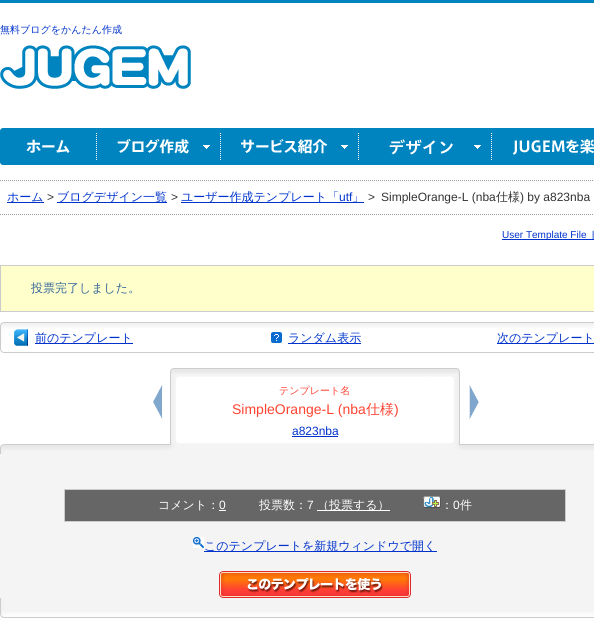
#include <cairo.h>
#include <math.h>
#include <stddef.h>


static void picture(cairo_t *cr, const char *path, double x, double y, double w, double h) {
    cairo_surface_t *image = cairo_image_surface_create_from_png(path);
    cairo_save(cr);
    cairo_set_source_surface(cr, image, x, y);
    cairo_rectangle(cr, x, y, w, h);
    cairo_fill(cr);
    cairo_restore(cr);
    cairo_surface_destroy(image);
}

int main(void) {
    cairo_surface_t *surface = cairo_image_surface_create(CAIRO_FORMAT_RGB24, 594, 625);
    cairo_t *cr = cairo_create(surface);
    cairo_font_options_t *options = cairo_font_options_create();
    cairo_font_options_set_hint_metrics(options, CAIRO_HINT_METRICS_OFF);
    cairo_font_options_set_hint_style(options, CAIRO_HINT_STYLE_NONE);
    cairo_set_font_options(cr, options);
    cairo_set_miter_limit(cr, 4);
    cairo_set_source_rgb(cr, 1, 1, 1);
    cairo_paint(cr);
    cairo_set_source_rgb(cr, 0, 0.518, 0.753);
    cairo_rectangle(cr, 0, 0, 594, 3);
    cairo_fill(cr);
    cairo_select_font_face(cr, "WenQuanYi Zen Hei Medium", CAIRO_FONT_SLANT_NORMAL, CAIRO_FONT_WEIGHT_NORMAL);
    cairo_set_font_size(cr, 10);
    cairo_set_source_rgb(cr, 0, 0.2, 0.8);
    cairo_move_to(cr, 0, 33);
    cairo_show_text(cr, "無料ブログをかんたん作成");
    picture(cr, "img1.png", 0, 45, 191, 44);
    picture(cr, "img2.png", 0, 128, 594, 37);
    cairo_new_path(cr);
    cairo_move_to(cr, 0, 180.5);
    cairo_line_to(cr, 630, 180.5);
    cairo_set_source_rgb(cr, 0.6, 0.6, 0.6);
    cairo_set_line_width(cr, 1);
    cairo_set_dash(cr, (double[]){1, 1}, 2, 0);
    cairo_stroke(cr);
    cairo_new_path(cr);
    cairo_move_to(cr, 0, 214.5);
    cairo_line_to(cr, 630, 214.5);
    cairo_stroke(cr);
    cairo_set_source_rgb(cr, 0, 0.2, 0.8);
    cairo_rectangle(cr, 7, 202, 37, 1);
    cairo_fill(cr);
    cairo_set_font_size(cr, 12);
    cairo_move_to(cr, 7, 201);
    cairo_show_text(cr, "ホーム");
    cairo_select_font_face(cr, "Liberation Sans", CAIRO_FONT_SLANT_NORMAL, CAIRO_FONT_WEIGHT_NORMAL);
    cairo_set_source_rgb(cr, 0.2, 0.2, 0.2);
    cairo_move_to(cr, 47, 201);
    cairo_show_text(cr, ">");
    cairo_set_source_rgb(cr, 0, 0.2, 0.8);
    cairo_rectangle(cr, 57, 202, 110, 1);
    cairo_fill(cr);
    cairo_select_font_face(cr, "WenQuanYi Zen Hei Medium", CAIRO_FONT_SLANT_NORMAL, CAIRO_FONT_WEIGHT_NORMAL);
    cairo_move_to(cr, 57, 201);
    cairo_show_text(cr, "ブログデザイン一覧");
    cairo_select_font_face(cr, "Liberation Sans", CAIRO_FONT_SLANT_NORMAL, CAIRO_FONT_WEIGHT_NORMAL);
    cairo_set_source_rgb(cr, 0.2, 0.2, 0.2);
    cairo_move_to(cr, 171, 201);
    cairo_show_text(cr, ">");
    cairo_set_source_rgb(cr, 0, 0.2, 0.8);
    cairo_rectangle(cr, 181, 202, 183, 1);
    cairo_fill(cr);
    cairo_select_font_face(cr, "WenQuanYi Zen Hei Medium", CAIRO_FONT_SLANT_NORMAL, CAIRO_FONT_WEIGHT_NORMAL);
    cairo_move_to(cr, 181, 201);
    cairo_show_text(cr, "ユーザー作成テンプレート「");
    cairo_select_font_face(cr, "Liberation Sans", CAIRO_FONT_SLANT_NORMAL, CAIRO_FONT_WEIGHT_NORMAL);
    cairo_move_to(cr, 339, 201);
    cairo_show_text(cr, "utf");
    cairo_select_font_face(cr, "WenQuanYi Zen Hei Medium", CAIRO_FONT_SLANT_NORMAL, CAIRO_FONT_WEIGHT_NORMAL);
    cairo_move_to(cr, 352, 201);
    cairo_show_text(cr, "」");
    cairo_select_font_face(cr, "Liberation Sans", CAIRO_FONT_SLANT_NORMAL, CAIRO_FONT_WEIGHT_NORMAL);
    cairo_set_source_rgb(cr, 0.2, 0.2, 0.2);
    cairo_move_to(cr, 368, 201);
    cairo_show_text(cr, ">");
    cairo_move_to(cr, 381, 201);
    cairo_show_text(cr, "SimpleOrange-L (nba");
    cairo_select_font_face(cr, "WenQuanYi Zen Hei Medium", CAIRO_FONT_SLANT_NORMAL, CAIRO_FONT_WEIGHT_NORMAL);
    cairo_move_to(cr, 496, 201);
    cairo_show_text(cr, "仕様");
    cairo_select_font_face(cr, "Liberation Sans", CAIRO_FONT_SLANT_NORMAL, CAIRO_FONT_WEIGHT_NORMAL);
    cairo_move_to(cr, 520, 201);
    cairo_show_text(cr, ") by a823nba");
    cairo_set_source_rgb(cr, 0, 0.2, 0.8);
    cairo_rectangle(cr, 502, 239, 92, 1);
    cairo_fill(cr);
    cairo_set_font_size(cr, 10);
    cairo_move_to(cr, 502, 238);
    cairo_show_text(cr, "User Template File");
    cairo_select_font_face(cr, "WenQuanYi Zen Hei Medium", CAIRO_FONT_SLANT_NORMAL, CAIRO_FONT_WEIGHT_NORMAL);
    cairo_move_to(cr, 589, 238);
    cairo_show_text(cr, "ト");
    cairo_set_source_rgb(cr, 1, 1, 0.8);
    cairo_rectangle(cr, 0.5, 265.5, 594, 46);
    cairo_fill_preserve(cr);
    cairo_set_source_rgb(cr, 0.8, 0.8, 0.8);
    cairo_set_dash(cr, NULL, 0, 0);
    cairo_stroke(cr);
    cairo_set_font_size(cr, 12);
    cairo_set_source_rgb(cr, 0.2, 0.4, 0.6);
    cairo_move_to(cr, 31, 292);
    cairo_show_text(cr, "投票完了しました。");
    picture(cr, "img3.png", 0, 322, 594, 31);
    cairo_set_source_rgb(cr, 0, 0.2, 0.8);
    cairo_rectangle(cr, 35, 343, 98, 1);
    cairo_fill(cr);
    cairo_move_to(cr, 35, 342);
    cairo_show_text(cr, "前のテンプレート");
    picture(cr, "img4.png", 271, 332, 11, 11);
    cairo_rectangle(cr, 288, 343, 73, 1);
    cairo_fill(cr);
    cairo_move_to(cr, 288, 342);
    cairo_show_text(cr, "ランダム表示");
    cairo_rectangle(cr, 497, 343, 97, 1);
    cairo_fill(cr);
    cairo_move_to(cr, 497, 342);
    cairo_show_text(cr, "次のテンプレート");
    picture(cr, "img5.png", 0, 368, 594, 86);
    cairo_set_font_size(cr, 10);
    cairo_set_source_rgb(cr, 1, 0.263, 0.196);
    cairo_move_to(cr, 279, 394);
    cairo_show_text(cr, "テンプレート名");
    cairo_select_font_face(cr, "Liberation Sans", CAIRO_FONT_SLANT_NORMAL, CAIRO_FONT_WEIGHT_NORMAL);
    cairo_set_font_size(cr, 14);
    cairo_move_to(cr, 232, 414);
    cairo_show_text(cr, "SimpleOrange-L (nba");
    cairo_select_font_face(cr, "WenQuanYi Zen Hei Medium", CAIRO_FONT_SLANT_NORMAL, CAIRO_FONT_WEIGHT_NORMAL);
    cairo_move_to(cr, 366, 414);
    cairo_show_text(cr, "仕様");
    cairo_select_font_face(cr, "Liberation Sans", CAIRO_FONT_SLANT_NORMAL, CAIRO_FONT_WEIGHT_NORMAL);
    cairo_move_to(cr, 394, 414);
    cairo_show_text(cr, ")");
    cairo_set_font_size(cr, 12);
    cairo_set_source_rgb(cr, 0, 0.2, 0.8);
    cairo_move_to(cr, 292, 435);
    cairo_show_text(cr, "a823nba");
    cairo_rectangle(cr, 292, 436, 46, 1);
    cairo_fill(cr);
    cairo_set_source_rgb(cr, 0.957, 0.957, 0.957);
    cairo_rectangle(cr, 0, 454, 594, 144);
    cairo_fill(cr);
    picture(cr, "img6.png", 0, 598, 594, 20);
    cairo_set_source_rgb(cr, 0.4, 0.4, 0.4);
    cairo_rectangle(cr, 64.5, 489.5, 501, 32);
    cairo_fill_preserve(cr);
    cairo_set_source_rgb(cr, 0.8, 0.8, 0.8);
    cairo_stroke(cr);
    cairo_select_font_face(cr, "WenQuanYi Zen Hei Medium", CAIRO_FONT_SLANT_NORMAL, CAIRO_FONT_WEIGHT_NORMAL);
    cairo_set_source_rgb(cr, 1, 1, 1);
    cairo_move_to(cr, 158, 509);
    cairo_show_text(cr, "コメント：");
    cairo_select_font_face(cr, "Liberation Sans", CAIRO_FONT_SLANT_NORMAL, CAIRO_FONT_WEIGHT_NORMAL);
    cairo_move_to(cr, 219, 509);
    cairo_show_text(cr, "0");
    cairo_rectangle(cr, 219, 510, 7, 1);
    cairo_fill(cr);
    cairo_select_font_face(cr, "WenQuanYi Zen Hei Medium", CAIRO_FONT_SLANT_NORMAL, CAIRO_FONT_WEIGHT_NORMAL);
    cairo_move_to(cr, 259, 509);
    cairo_show_text(cr, "投票数：");
    cairo_select_font_face(cr, "Liberation Sans", CAIRO_FONT_SLANT_NORMAL, CAIRO_FONT_WEIGHT_NORMAL);
    cairo_move_to(cr, 307, 509);
    cairo_show_text(cr, "7");
    cairo_rectangle(cr, 317, 510, 73, 1);
    cairo_fill(cr);
    cairo_select_font_face(cr, "WenQuanYi Zen Hei Medium", CAIRO_FONT_SLANT_NORMAL, CAIRO_FONT_WEIGHT_NORMAL);
    cairo_move_to(cr, 317, 509);
    cairo_show_text(cr, "（投票する）");
    picture(cr, "img7.png", 423, 496, 18, 12);
    cairo_move_to(cr, 441, 509);
    cairo_show_text(cr, "：");
    cairo_select_font_face(cr, "Liberation Sans", CAIRO_FONT_SLANT_NORMAL, CAIRO_FONT_WEIGHT_NORMAL);
    cairo_move_to(cr, 453, 509);
    cairo_show_text(cr, "0");
    cairo_select_font_face(cr, "WenQuanYi Zen Hei Medium", CAIRO_FONT_SLANT_NORMAL, CAIRO_FONT_WEIGHT_NORMAL);
    cairo_move_to(cr, 460, 509);
    cairo_show_text(cr, "件");
    picture(cr, "img8.png", 193, 537, 11, 11);
    cairo_set_source_rgb(cr, 0, 0.2, 0.8);
    cairo_rectangle(cr, 204, 551, 233, 1);
    cairo_fill(cr);
    cairo_move_to(cr, 204, 550);
    cairo_show_text(cr, "このテンプレートを新規ウィンドウで開く");
    picture(cr, "img9.png", 219, 571, 192, 27);
    cairo_surface_write_to_png(surface, "page.png");
    cairo_font_options_destroy(options);
    cairo_destroy(cr);
    cairo_surface_destroy(surface);
    return 0;
}
